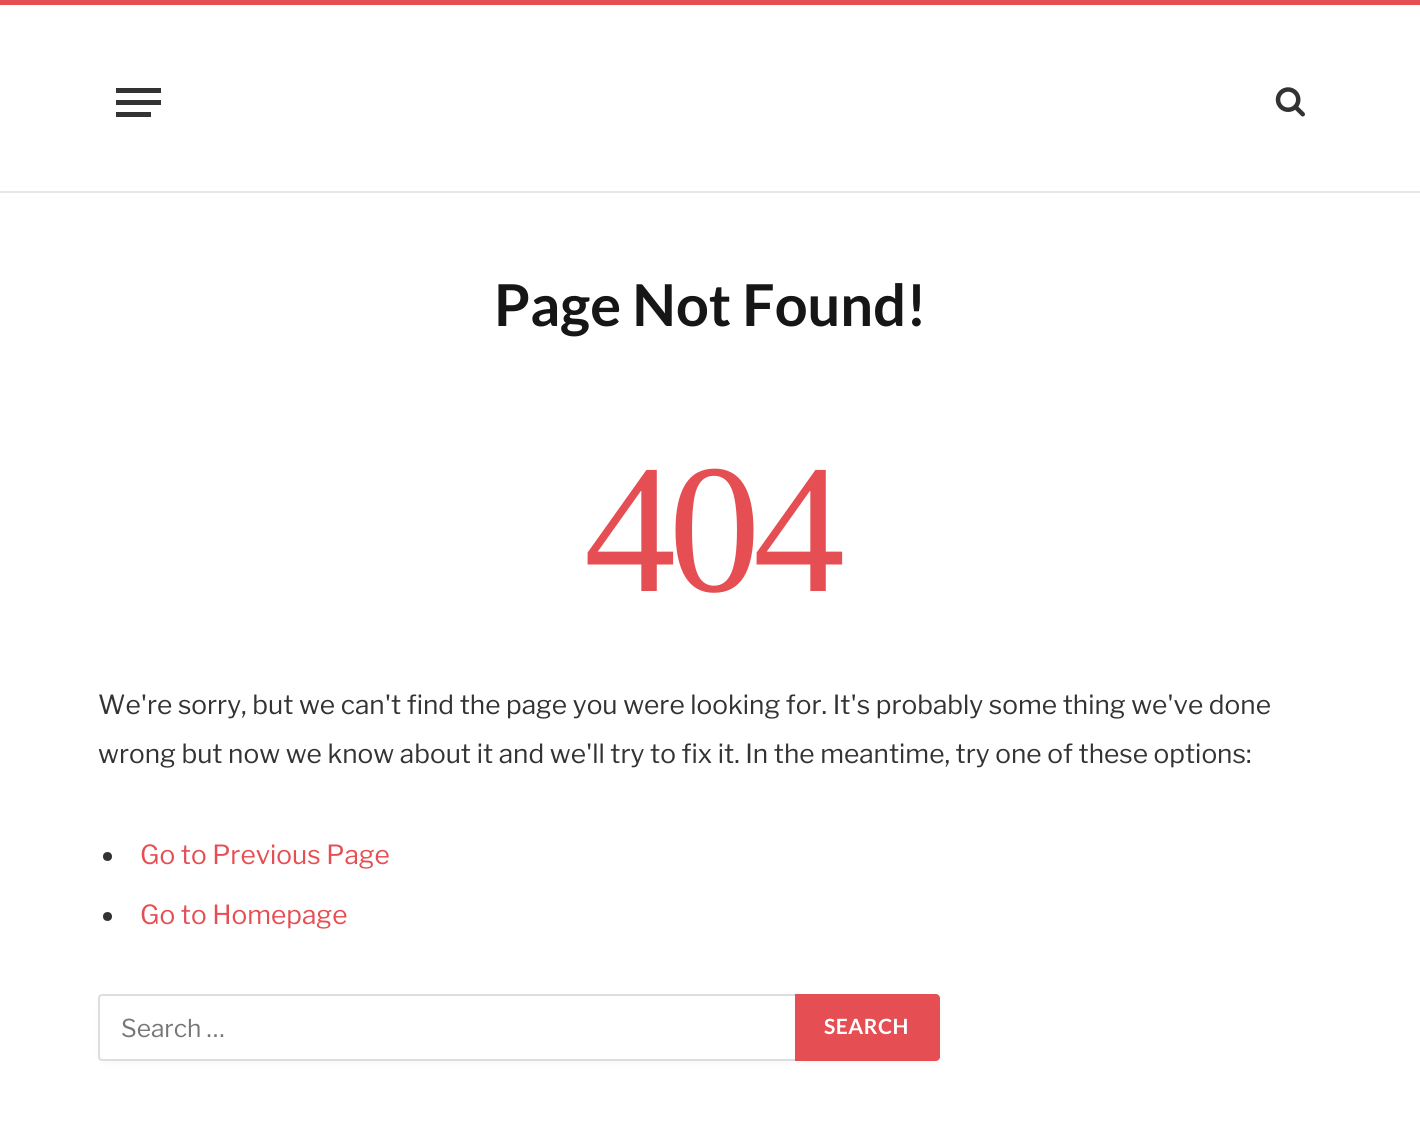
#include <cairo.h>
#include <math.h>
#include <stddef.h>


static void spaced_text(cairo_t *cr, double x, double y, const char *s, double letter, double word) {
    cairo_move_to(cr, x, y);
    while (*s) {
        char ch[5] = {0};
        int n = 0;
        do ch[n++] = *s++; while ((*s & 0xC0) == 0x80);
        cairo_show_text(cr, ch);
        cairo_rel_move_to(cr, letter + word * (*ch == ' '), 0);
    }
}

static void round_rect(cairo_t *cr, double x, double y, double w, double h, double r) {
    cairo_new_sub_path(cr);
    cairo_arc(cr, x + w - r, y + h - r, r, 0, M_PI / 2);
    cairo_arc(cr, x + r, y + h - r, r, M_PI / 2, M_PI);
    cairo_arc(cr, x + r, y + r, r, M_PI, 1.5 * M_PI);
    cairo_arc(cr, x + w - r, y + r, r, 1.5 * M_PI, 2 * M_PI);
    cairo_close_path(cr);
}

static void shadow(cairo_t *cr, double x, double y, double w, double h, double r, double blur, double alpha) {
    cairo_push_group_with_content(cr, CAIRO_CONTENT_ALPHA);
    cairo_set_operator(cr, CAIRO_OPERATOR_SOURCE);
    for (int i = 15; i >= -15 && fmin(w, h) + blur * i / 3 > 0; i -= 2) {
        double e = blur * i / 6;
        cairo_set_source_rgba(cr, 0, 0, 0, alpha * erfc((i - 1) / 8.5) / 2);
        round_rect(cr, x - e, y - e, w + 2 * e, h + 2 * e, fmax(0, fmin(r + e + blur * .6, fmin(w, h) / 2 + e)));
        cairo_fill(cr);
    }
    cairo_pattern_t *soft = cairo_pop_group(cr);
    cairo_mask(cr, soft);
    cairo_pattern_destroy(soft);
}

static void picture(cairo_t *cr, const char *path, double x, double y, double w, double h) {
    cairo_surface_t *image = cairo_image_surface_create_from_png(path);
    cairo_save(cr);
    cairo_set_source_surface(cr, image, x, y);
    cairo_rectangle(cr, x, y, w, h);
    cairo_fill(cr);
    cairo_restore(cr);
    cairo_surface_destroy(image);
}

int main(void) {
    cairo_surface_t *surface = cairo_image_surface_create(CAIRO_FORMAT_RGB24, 1420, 1145);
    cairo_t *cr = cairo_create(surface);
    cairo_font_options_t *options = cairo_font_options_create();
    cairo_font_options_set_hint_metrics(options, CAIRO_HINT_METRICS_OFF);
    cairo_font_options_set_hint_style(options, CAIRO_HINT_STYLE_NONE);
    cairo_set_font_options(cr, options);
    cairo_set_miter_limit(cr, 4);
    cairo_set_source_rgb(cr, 1, 1, 1);
    cairo_paint(cr);
    cairo_set_source_rgb(cr, 0.898, 0.306, 0.325);
    cairo_rectangle(cr, 0, 0, 1420, 5);
    cairo_fill(cr);
    cairo_set_source_rgb(cr, 0.91, 0.91, 0.91);
    cairo_rectangle(cr, 0, 191, 1420, 2);
    cairo_fill(cr);
    cairo_set_source_rgb(cr, 0.2, 0.2, 0.2);
    cairo_rectangle(cr, 116, 112, 35, 5);
    cairo_fill(cr);
    cairo_rectangle(cr, 116, 88, 45, 5);
    cairo_fill(cr);
    cairo_rectangle(cr, 116, 100, 45, 5);
    cairo_fill(cr);
    picture(cr, "img1.png", 1275, 87, 30, 30);
    cairo_select_font_face(cr, "Lato", CAIRO_FONT_SLANT_NORMAL, CAIRO_FONT_WEIGHT_BOLD);
    cairo_set_font_size(cr, 57.75);
    cairo_set_source_rgb(cr, 0.086, 0.086, 0.086);
    cairo_move_to(cr, 494, 326);
    cairo_show_text(cr, "Page Not Found!");
    cairo_select_font_face(cr, "Liberation Serif", CAIRO_FONT_SLANT_NORMAL, CAIRO_FONT_WEIGHT_NORMAL);
    cairo_set_font_size(cr, 184);
    cairo_set_source_rgb(cr, 0.898, 0.306, 0.325);
    spaced_text(cr, 584, 591, "404", -7.5, 0);
    cairo_select_font_face(cr, "Libre Franklin", CAIRO_FONT_SLANT_NORMAL, CAIRO_FONT_WEIGHT_NORMAL);
    cairo_set_font_size(cr, 26.25);
    cairo_set_source_rgb(cr, 0.2, 0.2, 0.2);
    cairo_move_to(cr, 98, 714);
    cairo_show_text(cr, "We're sorry, but we can't find the page you were looking for. It's probably some thing we've done");
    cairo_move_to(cr, 98, 763);
    cairo_show_text(cr, "wrong but now we know about it and we'll try to fix it. In the meantime, try one of these options:");
    cairo_new_path(cr);
    cairo_arc(cr, 107.5, 856.5, 4.5, 0, 2 * M_PI);
    cairo_fill(cr);
    cairo_set_source_rgb(cr, 0.898, 0.306, 0.325);
    cairo_move_to(cr, 140, 864);
    cairo_show_text(cr, "Go to Previous Page");
    cairo_set_source_rgb(cr, 0.2, 0.2, 0.2);
    cairo_new_path(cr);
    cairo_arc(cr, 107.5, 916.5, 4.5, 0, 2 * M_PI);
    cairo_fill(cr);
    cairo_set_source_rgb(cr, 0.898, 0.306, 0.325);
    cairo_move_to(cr, 140, 924);
    cairo_show_text(cr, "Go to Homepage");
    cairo_set_source_rgb(cr, 0, 0, 0);
    shadow(cr, 105, 1005, 686, 52, 0, 6, 0.1);
    cairo_set_source_rgb(cr, 1, 1, 1);
    round_rect(cr, 99, 995, 698, 65, 3);
    cairo_fill_preserve(cr);
    cairo_set_source_rgb(cr, 0.867, 0.867, 0.867);
    cairo_stroke(cr);
    cairo_set_font_size(cr, 24.5);
    cairo_set_source_rgb(cr, 0.467, 0.467, 0.467);
    cairo_move_to(cr, 121, 1037);
    cairo_show_text(cr, "Search …");
    cairo_set_source_rgb(cr, 0, 0, 0);
    shadow(cr, 802, 1005, 131, 52, 0, 6, 0.16);
    cairo_set_source_rgb(cr, 0.898, 0.306, 0.325);
    cairo_new_path(cr);
    cairo_move_to(cr, 795, 994);
    cairo_line_to(cr, 936, 994);
    cairo_curve_to(cr, 938, 994, 940, 996, 940, 998);
    cairo_line_to(cr, 940, 1057);
    cairo_curve_to(cr, 940, 1059, 938, 1061, 936, 1061);
    cairo_line_to(cr, 795, 1061);
    cairo_close_path(cr);
    cairo_fill(cr);
    cairo_select_font_face(cr, "Lato", CAIRO_FONT_SLANT_NORMAL, CAIRO_FONT_WEIGHT_BOLD);
    cairo_set_font_size(cr, 21);
    cairo_set_source_rgb(cr, 1, 1, 1);
    spaced_text(cr, 824, 1034, "SEARCH", 0.5, 0);
    cairo_surface_write_to_png(surface, "page.png");
    cairo_font_options_destroy(options);
    cairo_destroy(cr);
    cairo_surface_destroy(surface);
    return 0;
}
